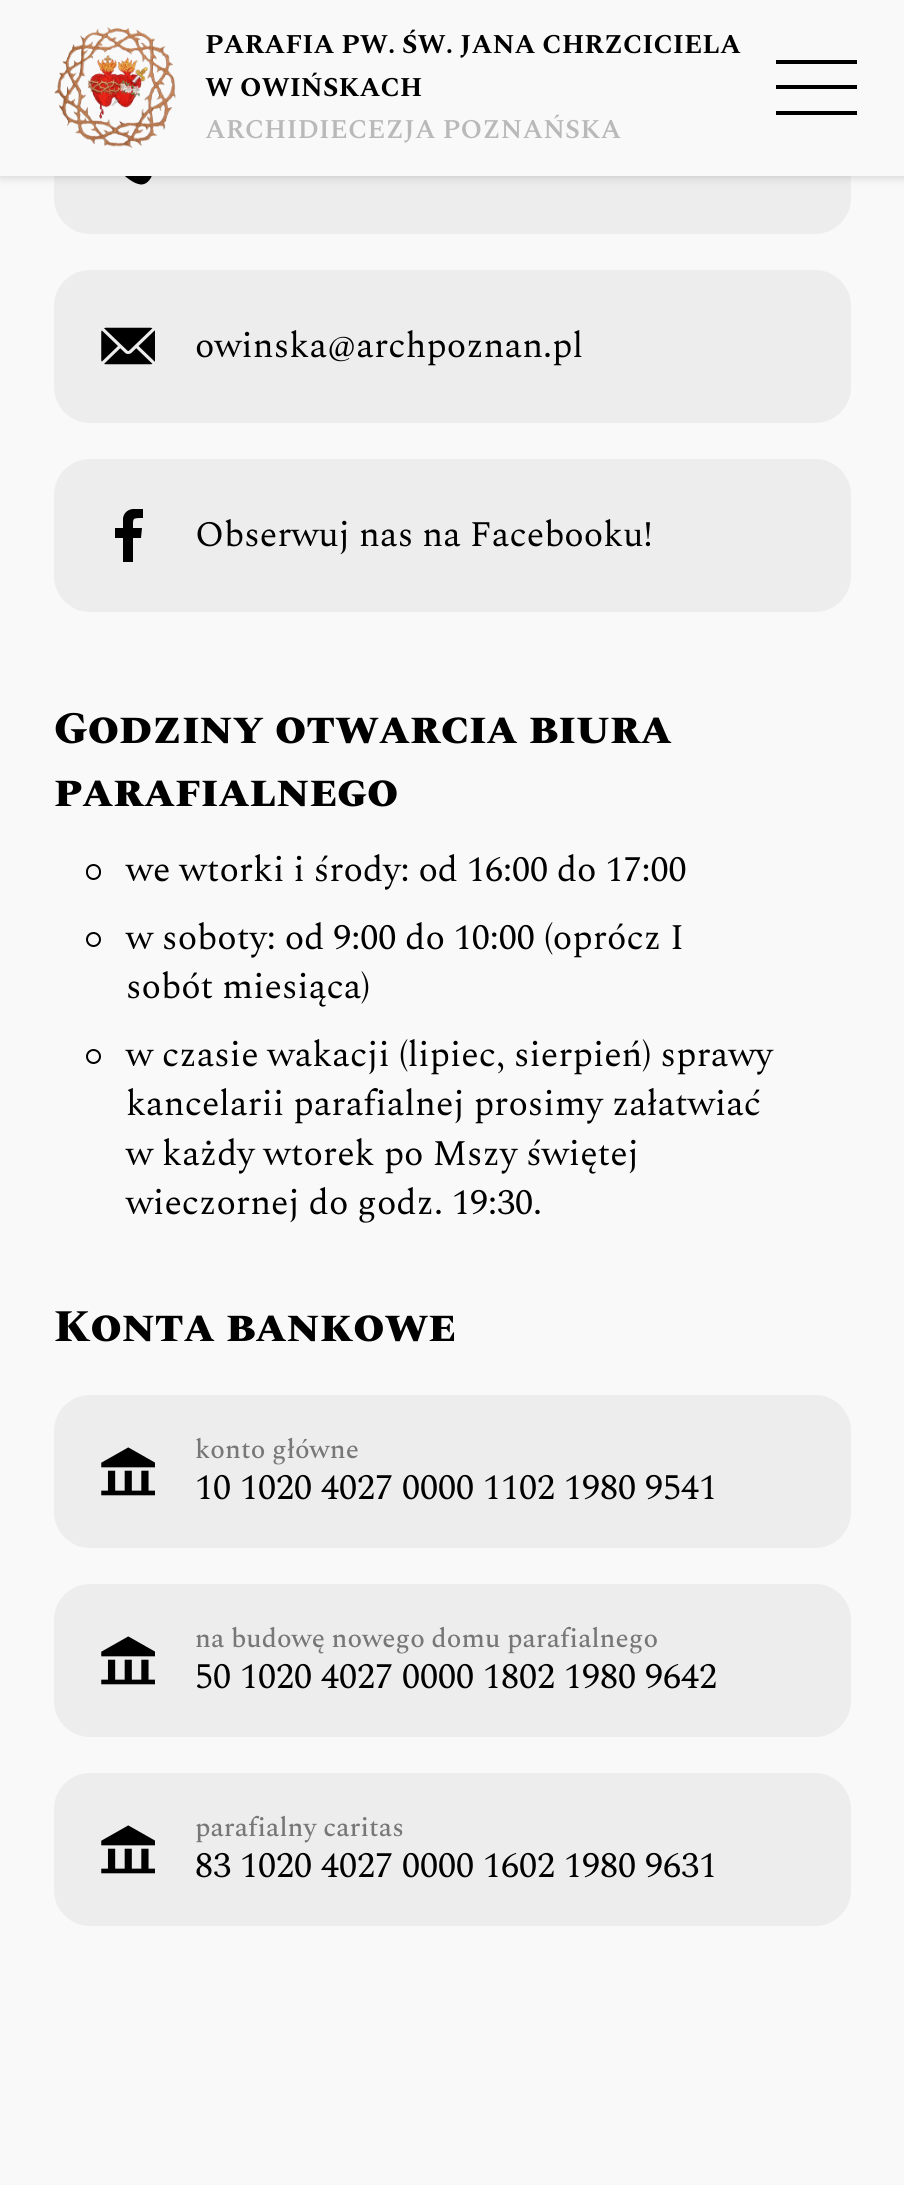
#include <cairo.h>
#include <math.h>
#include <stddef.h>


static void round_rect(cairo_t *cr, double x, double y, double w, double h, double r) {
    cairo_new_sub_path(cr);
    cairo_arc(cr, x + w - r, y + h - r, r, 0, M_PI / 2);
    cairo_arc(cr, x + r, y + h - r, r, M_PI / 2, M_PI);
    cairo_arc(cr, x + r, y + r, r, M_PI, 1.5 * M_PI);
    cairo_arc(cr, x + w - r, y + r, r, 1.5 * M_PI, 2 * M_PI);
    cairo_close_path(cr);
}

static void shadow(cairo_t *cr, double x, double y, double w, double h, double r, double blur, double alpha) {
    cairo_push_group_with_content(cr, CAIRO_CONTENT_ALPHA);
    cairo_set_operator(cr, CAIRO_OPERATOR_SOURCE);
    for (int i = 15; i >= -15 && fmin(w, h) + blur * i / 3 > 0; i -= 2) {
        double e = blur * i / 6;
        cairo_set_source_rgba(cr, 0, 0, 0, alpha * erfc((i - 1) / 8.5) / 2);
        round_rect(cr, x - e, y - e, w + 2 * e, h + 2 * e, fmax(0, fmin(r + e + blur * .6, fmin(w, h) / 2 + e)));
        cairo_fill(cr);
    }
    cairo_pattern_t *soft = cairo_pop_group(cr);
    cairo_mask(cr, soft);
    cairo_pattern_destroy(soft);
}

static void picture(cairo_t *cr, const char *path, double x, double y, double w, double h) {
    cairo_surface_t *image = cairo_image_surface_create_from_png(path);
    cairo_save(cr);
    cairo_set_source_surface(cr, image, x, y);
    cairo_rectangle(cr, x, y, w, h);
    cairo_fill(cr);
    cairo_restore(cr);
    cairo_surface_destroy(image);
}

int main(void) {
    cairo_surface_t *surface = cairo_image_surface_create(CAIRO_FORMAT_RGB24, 904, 2185);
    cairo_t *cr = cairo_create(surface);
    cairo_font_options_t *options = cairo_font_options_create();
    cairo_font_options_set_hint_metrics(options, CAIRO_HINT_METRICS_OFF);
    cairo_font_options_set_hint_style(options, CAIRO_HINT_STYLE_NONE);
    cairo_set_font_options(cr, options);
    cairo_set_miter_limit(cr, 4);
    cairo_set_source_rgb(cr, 0.973, 0.973, 0.973);
    cairo_paint(cr);
    cairo_set_source_rgb(cr, 0.929, 0.929, 0.929);
    round_rect(cr, 54, 81, 797, 153, 36);
    cairo_fill(cr);
    picture(cr, "img2.png", 125, 176, 27, 9);
    cairo_set_source_rgb(cr, 0, 0, 0);
    shadow(cr, 0, 0, 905, 176, 0, 5.5, 0.2);
    cairo_set_source_rgb(cr, 0.973, 0.973, 0.973);
    cairo_rectangle(cr, 0, 0, 904, 176);
    cairo_fill(cr);
    picture(cr, "img1.png", 54, 27, 122, 121);
    cairo_select_font_face(cr, "Spectral", CAIRO_FONT_SLANT_NORMAL, CAIRO_FONT_WEIGHT_BOLD);
    cairo_set_font_size(cr, 27.1);
    cairo_set_source_rgb(cr, 0, 0, 0);
    cairo_move_to(cr, 205, 53);
    cairo_show_text(cr, "PARAFIA PW. ŚW. JANA CHRZCICIELA");
    cairo_move_to(cr, 205, 96);
    cairo_show_text(cr, "W OWIŃSKACH");
    cairo_select_font_face(cr, "Spectral SC SemiBold", CAIRO_FONT_SLANT_NORMAL, CAIRO_FONT_WEIGHT_NORMAL);
    cairo_set_source_rgb(cr, 0.725, 0.725, 0.725);
    cairo_move_to(cr, 205, 138);
    cairo_show_text(cr, "ARCHIDIECEZJA POZNAŃSKA");
    cairo_set_source_rgb(cr, 0, 0, 0);
    cairo_rectangle(cr, 776, 60, 81, 4);
    cairo_fill(cr);
    cairo_rectangle(cr, 776, 111, 81, 4);
    cairo_fill(cr);
    cairo_rectangle(cr, 776, 85, 81, 4);
    cairo_fill(cr);
    cairo_set_source_rgb(cr, 0.929, 0.929, 0.929);
    round_rect(cr, 54, 270, 797, 153, 36);
    cairo_fill(cr);
    picture(cr, "img3.png", 101, 327, 54, 38);
    cairo_select_font_face(cr, "Spectral", CAIRO_FONT_SLANT_NORMAL, CAIRO_FONT_WEIGHT_NORMAL);
    cairo_set_font_size(cr, 36);
    cairo_set_source_rgb(cr, 0, 0, 0);
    cairo_move_to(cr, 195, 357);
    cairo_show_text(cr, "owinska@archpoznan.pl");
    cairo_set_source_rgb(cr, 0.929, 0.929, 0.929);
    round_rect(cr, 54, 459, 797, 153, 36);
    cairo_fill(cr);
    cairo_save(cr);
    cairo_rectangle(cr, 115, 509, 29, 54);
    cairo_clip(cr);
    cairo_set_source_rgb(cr, 0, 0, 0);
    cairo_new_path(cr);
    cairo_move_to(cr, 143, 518);
    cairo_line_to(cr, 143, 509);
    cairo_curve_to(cr, 135, 508, 125, 508, 123, 518);
    cairo_line_to(cr, 123, 528);
    cairo_line_to(cr, 115, 528);
    cairo_line_to(cr, 115, 538);
    cairo_line_to(cr, 123, 538);
    cairo_line_to(cr, 123, 562);
    cairo_line_to(cr, 133, 562);
    cairo_line_to(cr, 133, 538);
    cairo_line_to(cr, 141, 538);
    cairo_line_to(cr, 142, 528);
    cairo_line_to(cr, 133, 528);
    cairo_curve_to(cr, 133, 518, 132, 518, 143, 518);
    cairo_close_path(cr);
    cairo_fill(cr);
    cairo_restore(cr);
    cairo_set_source_rgb(cr, 0, 0, 0);
    cairo_move_to(cr, 195, 546);
    cairo_show_text(cr, "Obserwuj nas na Facebooku!");
    cairo_select_font_face(cr, "Spectral SC ExtraBold", CAIRO_FONT_SLANT_NORMAL, CAIRO_FONT_WEIGHT_NORMAL);
    cairo_set_font_size(cr, 45);
    cairo_move_to(cr, 54, 743);
    cairo_show_text(cr, "Godziny otwarcia biura");
    cairo_move_to(cr, 54, 806);
    cairo_show_text(cr, "parafialnego");
    round_rect(cr, 87, 865, 13, 14, 6.5);
    cairo_stroke(cr);
    cairo_select_font_face(cr, "Spectral", CAIRO_FONT_SLANT_NORMAL, CAIRO_FONT_WEIGHT_NORMAL);
    cairo_set_font_size(cr, 36);
    cairo_move_to(cr, 126, 881);
    cairo_show_text(cr, "we wtorki i środy: od 16:00 do 17:00");
    cairo_new_path(cr);
    cairo_arc(cr, 93.5, 939.5, 6.5, 0, 2 * M_PI);
    cairo_stroke(cr);
    cairo_move_to(cr, 126, 949);
    cairo_show_text(cr, "w soboty: od 9:00 do 10:00 (oprócz I");
    cairo_move_to(cr, 126, 998);
    cairo_show_text(cr, "sobót miesiąca)");
    cairo_new_path(cr);
    cairo_arc(cr, 93.5, 1056.5, 6.5, 0, 2 * M_PI);
    cairo_stroke(cr);
    cairo_move_to(cr, 126, 1066);
    cairo_show_text(cr, "w czasie wakacji (lipiec, sierpień) sprawy");
    cairo_move_to(cr, 126, 1115);
    cairo_show_text(cr, "kancelarii parafialnej prosimy załatwiać");
    cairo_move_to(cr, 126, 1165);
    cairo_show_text(cr, "w każdy wtorek po Mszy świętej");
    cairo_move_to(cr, 126, 1214);
    cairo_show_text(cr, "wieczornej do godz. 19:30.");
    cairo_select_font_face(cr, "Spectral SC ExtraBold", CAIRO_FONT_SLANT_NORMAL, CAIRO_FONT_WEIGHT_NORMAL);
    cairo_set_font_size(cr, 45);
    cairo_move_to(cr, 54, 1341);
    cairo_show_text(cr, "Konta bankowe");
    cairo_set_source_rgb(cr, 0.929, 0.929, 0.929);
    round_rect(cr, 54, 1395, 797, 153, 36);
    cairo_fill(cr);
    picture(cr, "img4.png", 101, 1447, 54, 49);
    cairo_select_font_face(cr, "Spectral Medium", CAIRO_FONT_SLANT_NORMAL, CAIRO_FONT_WEIGHT_NORMAL);
    cairo_set_font_size(cr, 27);
    cairo_set_source_rgb(cr, 0.467, 0.467, 0.467);
    cairo_move_to(cr, 195, 1458);
    cairo_show_text(cr, "konto główne");
    cairo_select_font_face(cr, "Spectral", CAIRO_FONT_SLANT_NORMAL, CAIRO_FONT_WEIGHT_NORMAL);
    cairo_set_font_size(cr, 36);
    cairo_set_source_rgb(cr, 0, 0, 0);
    cairo_move_to(cr, 195, 1499);
    cairo_show_text(cr, "10 1020 4027 0000 1102 1980 9541");
    cairo_set_source_rgb(cr, 0.929, 0.929, 0.929);
    round_rect(cr, 54, 1584, 797, 153, 36);
    cairo_fill(cr);
    picture(cr, "img4.png", 101, 1636, 54, 49);
    cairo_select_font_face(cr, "Spectral Medium", CAIRO_FONT_SLANT_NORMAL, CAIRO_FONT_WEIGHT_NORMAL);
    cairo_set_font_size(cr, 27);
    cairo_set_source_rgb(cr, 0.467, 0.467, 0.467);
    cairo_move_to(cr, 195, 1647);
    cairo_show_text(cr, "na budowę nowego domu parafialnego");
    cairo_select_font_face(cr, "Spectral", CAIRO_FONT_SLANT_NORMAL, CAIRO_FONT_WEIGHT_NORMAL);
    cairo_set_font_size(cr, 36);
    cairo_set_source_rgb(cr, 0, 0, 0);
    cairo_move_to(cr, 195, 1688);
    cairo_show_text(cr, "50 1020 4027 0000 1802 1980 9642");
    cairo_set_source_rgb(cr, 0.929, 0.929, 0.929);
    round_rect(cr, 54, 1773, 797, 153, 36);
    cairo_fill(cr);
    picture(cr, "img4.png", 101, 1825, 54, 49);
    cairo_select_font_face(cr, "Spectral Medium", CAIRO_FONT_SLANT_NORMAL, CAIRO_FONT_WEIGHT_NORMAL);
    cairo_set_font_size(cr, 27);
    cairo_set_source_rgb(cr, 0.467, 0.467, 0.467);
    cairo_move_to(cr, 195, 1836);
    cairo_show_text(cr, "parafialny caritas");
    cairo_select_font_face(cr, "Spectral", CAIRO_FONT_SLANT_NORMAL, CAIRO_FONT_WEIGHT_NORMAL);
    cairo_set_font_size(cr, 36);
    cairo_set_source_rgb(cr, 0, 0, 0);
    cairo_move_to(cr, 195, 1877);
    cairo_show_text(cr, "83 1020 4027 0000 1602 1980 9631");
    cairo_surface_write_to_png(surface, "page.png");
    cairo_font_options_destroy(options);
    cairo_destroy(cr);
    cairo_surface_destroy(surface);
    return 0;
}
